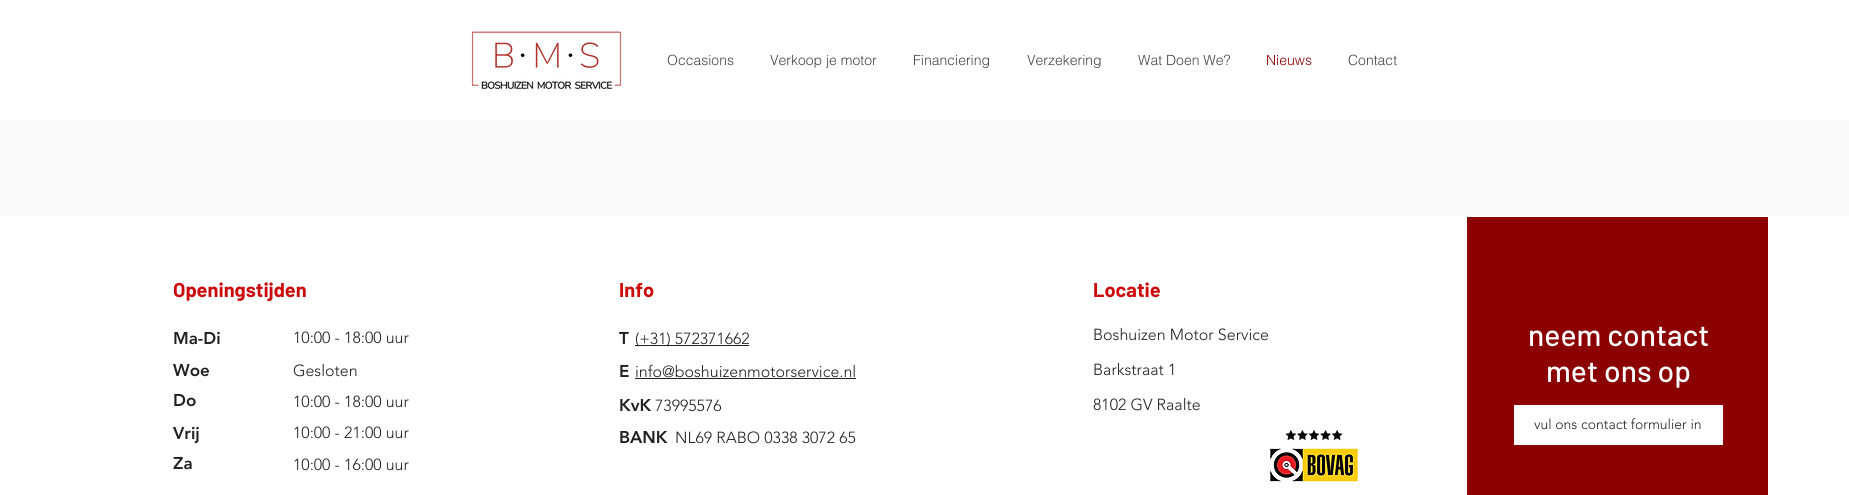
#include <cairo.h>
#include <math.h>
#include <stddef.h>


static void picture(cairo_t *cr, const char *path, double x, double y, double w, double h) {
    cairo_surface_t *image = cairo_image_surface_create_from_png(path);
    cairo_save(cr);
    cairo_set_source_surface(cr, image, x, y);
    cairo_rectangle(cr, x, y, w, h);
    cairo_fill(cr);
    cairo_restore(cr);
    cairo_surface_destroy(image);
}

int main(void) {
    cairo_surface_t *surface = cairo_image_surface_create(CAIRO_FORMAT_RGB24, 1849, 495);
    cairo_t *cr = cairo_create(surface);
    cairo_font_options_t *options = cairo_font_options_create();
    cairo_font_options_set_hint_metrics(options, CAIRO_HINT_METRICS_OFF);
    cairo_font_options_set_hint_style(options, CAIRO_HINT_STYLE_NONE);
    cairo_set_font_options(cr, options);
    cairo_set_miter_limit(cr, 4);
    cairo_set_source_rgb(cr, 0.973, 0.973, 0.973);
    cairo_paint(cr);
    cairo_set_source_rgb(cr, 1, 1, 1);
    cairo_rectangle(cr, 0, 0, 1849, 120);
    cairo_fill(cr);
    picture(cr, "img1.png", 471, 31, 151, 58);
    cairo_select_font_face(cr, "helvetica Light", CAIRO_FONT_SLANT_NORMAL, CAIRO_FONT_WEIGHT_NORMAL);
    cairo_set_font_size(cr, 14);
    cairo_set_source_rgb(cr, 0.267, 0.267, 0.267);
    cairo_move_to(cr, 667, 65);
    cairo_show_text(cr, "Occasions");
    cairo_move_to(cr, 770, 65);
    cairo_show_text(cr, "Verkoop je motor");
    cairo_move_to(cr, 913, 65);
    cairo_show_text(cr, "Financiering");
    cairo_move_to(cr, 1027, 65);
    cairo_show_text(cr, "Verzekering");
    cairo_move_to(cr, 1138, 65);
    cairo_show_text(cr, "Wat Doen We?");
    cairo_set_source_rgb(cr, 0.545, 0, 0);
    cairo_move_to(cr, 1266, 65);
    cairo_show_text(cr, "Nieuws");
    cairo_set_source_rgb(cr, 0.267, 0.267, 0.267);
    cairo_move_to(cr, 1348, 65);
    cairo_show_text(cr, "Contact");
    cairo_set_source_rgb(cr, 1, 1, 1);
    cairo_rectangle(cr, 0, 216, 1849, 279);
    cairo_fill(cr);
    cairo_select_font_face(cr, "Barlow", CAIRO_FONT_SLANT_NORMAL, CAIRO_FONT_WEIGHT_BOLD);
    cairo_set_font_size(cr, 20);
    cairo_set_source_rgb(cr, 0.8, 0.047, 0.047);
    cairo_move_to(cr, 173, 297);
    cairo_show_text(cr, "Openingstijden");
    cairo_select_font_face(cr, "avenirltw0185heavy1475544 Black", CAIRO_FONT_SLANT_NORMAL, CAIRO_FONT_WEIGHT_NORMAL);
    cairo_set_font_size(cr, 17);
    cairo_set_source_rgb(cr, 0.129, 0.129, 0.129);
    cairo_move_to(cr, 173, 344);
    cairo_show_text(cr, "Ma-Di");
    cairo_select_font_face(cr, "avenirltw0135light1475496 Light", CAIRO_FONT_SLANT_NORMAL, CAIRO_FONT_WEIGHT_NORMAL);
    cairo_set_font_size(cr, 16);
    cairo_move_to(cr, 293, 343);
    cairo_show_text(cr, "10:00 - 18:00 uur");
    cairo_select_font_face(cr, "avenirltw0185heavy1475544 Black", CAIRO_FONT_SLANT_NORMAL, CAIRO_FONT_WEIGHT_NORMAL);
    cairo_set_font_size(cr, 17);
    cairo_move_to(cr, 173, 376);
    cairo_show_text(cr, "Woe");
    cairo_select_font_face(cr, "avenirltw0135light1475496 Light", CAIRO_FONT_SLANT_NORMAL, CAIRO_FONT_WEIGHT_NORMAL);
    cairo_set_font_size(cr, 16);
    cairo_move_to(cr, 293, 376);
    cairo_show_text(cr, "Gesloten");
    cairo_select_font_face(cr, "avenirltw0185heavy1475544 Black", CAIRO_FONT_SLANT_NORMAL, CAIRO_FONT_WEIGHT_NORMAL);
    cairo_set_font_size(cr, 17);
    cairo_move_to(cr, 173, 406);
    cairo_show_text(cr, "Do");
    cairo_select_font_face(cr, "avenirltw0135light1475496 Light", CAIRO_FONT_SLANT_NORMAL, CAIRO_FONT_WEIGHT_NORMAL);
    cairo_set_font_size(cr, 16);
    cairo_move_to(cr, 293, 407);
    cairo_show_text(cr, "10:00 - 18:00 uur");
    cairo_select_font_face(cr, "avenirltw0185heavy1475544 Black", CAIRO_FONT_SLANT_NORMAL, CAIRO_FONT_WEIGHT_NORMAL);
    cairo_set_font_size(cr, 17);
    cairo_move_to(cr, 173, 439);
    cairo_show_text(cr, "Vrij");
    cairo_select_font_face(cr, "avenirltw0135light1475496 Light", CAIRO_FONT_SLANT_NORMAL, CAIRO_FONT_WEIGHT_NORMAL);
    cairo_set_font_size(cr, 16);
    cairo_move_to(cr, 293, 438);
    cairo_show_text(cr, "10:00 - 21:00 uur");
    cairo_select_font_face(cr, "avenirltw0185heavy1475544 Black", CAIRO_FONT_SLANT_NORMAL, CAIRO_FONT_WEIGHT_NORMAL);
    cairo_set_font_size(cr, 17);
    cairo_move_to(cr, 173, 469);
    cairo_show_text(cr, "Za");
    cairo_select_font_face(cr, "avenirltw0135light1475496 Light", CAIRO_FONT_SLANT_NORMAL, CAIRO_FONT_WEIGHT_NORMAL);
    cairo_set_font_size(cr, 16);
    cairo_move_to(cr, 293, 470);
    cairo_show_text(cr, "10:00 - 16:00 uur");
    cairo_select_font_face(cr, "Barlow", CAIRO_FONT_SLANT_NORMAL, CAIRO_FONT_WEIGHT_BOLD);
    cairo_set_font_size(cr, 20);
    cairo_set_source_rgb(cr, 0.8, 0.047, 0.047);
    cairo_move_to(cr, 619, 297);
    cairo_show_text(cr, "Info");
    cairo_select_font_face(cr, "avenirltw0185heavy1475544 Black", CAIRO_FONT_SLANT_NORMAL, CAIRO_FONT_WEIGHT_NORMAL);
    cairo_set_font_size(cr, 17);
    cairo_set_source_rgb(cr, 0.129, 0.129, 0.129);
    cairo_move_to(cr, 619, 344);
    cairo_show_text(cr, "T");
    cairo_rectangle(cr, 635, 345, 114, 1);
    cairo_fill(cr);
    cairo_select_font_face(cr, "avenirltw0135light1475496 Light", CAIRO_FONT_SLANT_NORMAL, CAIRO_FONT_WEIGHT_NORMAL);
    cairo_set_font_size(cr, 16);
    cairo_move_to(cr, 635, 344);
    cairo_show_text(cr, "(+31) 572371662");
    cairo_select_font_face(cr, "avenirltw0185heavy1475544 Black", CAIRO_FONT_SLANT_NORMAL, CAIRO_FONT_WEIGHT_NORMAL);
    cairo_set_font_size(cr, 17);
    cairo_move_to(cr, 619, 377);
    cairo_show_text(cr, "E");
    cairo_select_font_face(cr, "avenirltw0135light1475496 Light", CAIRO_FONT_SLANT_NORMAL, CAIRO_FONT_WEIGHT_NORMAL);
    cairo_set_font_size(cr, 16);
    cairo_move_to(cr, 635, 377);
    cairo_show_text(cr, "info@boshuizenmotorservice.nl");
    cairo_rectangle(cr, 635, 378, 221, 1);
    cairo_fill(cr);
    cairo_select_font_face(cr, "avenirltw0185heavy1475544 Black", CAIRO_FONT_SLANT_NORMAL, CAIRO_FONT_WEIGHT_NORMAL);
    cairo_set_font_size(cr, 17);
    cairo_move_to(cr, 619, 411);
    cairo_show_text(cr, "KvK");
    cairo_select_font_face(cr, "avenirltw0135light1475496 Light", CAIRO_FONT_SLANT_NORMAL, CAIRO_FONT_WEIGHT_NORMAL);
    cairo_set_font_size(cr, 16);
    cairo_move_to(cr, 655, 411);
    cairo_show_text(cr, "73995576");
    cairo_select_font_face(cr, "avenirltw0185heavy1475544 Black", CAIRO_FONT_SLANT_NORMAL, CAIRO_FONT_WEIGHT_NORMAL);
    cairo_set_font_size(cr, 17);
    cairo_move_to(cr, 619, 443);
    cairo_show_text(cr, "BANK");
    cairo_select_font_face(cr, "avenirltw0135light1475496 Light", CAIRO_FONT_SLANT_NORMAL, CAIRO_FONT_WEIGHT_NORMAL);
    cairo_set_font_size(cr, 16);
    cairo_move_to(cr, 675, 443);
    cairo_show_text(cr, "NL69 RABO 0338 3072 65");
    cairo_select_font_face(cr, "Barlow", CAIRO_FONT_SLANT_NORMAL, CAIRO_FONT_WEIGHT_BOLD);
    cairo_set_font_size(cr, 20);
    cairo_set_source_rgb(cr, 0.8, 0.047, 0.047);
    cairo_move_to(cr, 1093, 297);
    cairo_show_text(cr, "Locatie");
    cairo_select_font_face(cr, "avenirltw0135light1475496 Light", CAIRO_FONT_SLANT_NORMAL, CAIRO_FONT_WEIGHT_NORMAL);
    cairo_set_font_size(cr, 16);
    cairo_set_source_rgb(cr, 0.129, 0.129, 0.129);
    cairo_move_to(cr, 1093, 340);
    cairo_show_text(cr, "Boshuizen Motor Service");
    cairo_move_to(cr, 1093, 375);
    cairo_show_text(cr, "Barkstraat 1");
    cairo_move_to(cr, 1093, 410);
    cairo_show_text(cr, "8102 GV Raalte");
    picture(cr, "img2.png", 1270, 430, 88, 52);
    cairo_set_source_rgb(cr, 0.545, 0, 0);
    cairo_rectangle(cr, 1467, 217, 301, 278);
    cairo_fill(cr);
    cairo_select_font_face(cr, "Barlow Medium", CAIRO_FONT_SLANT_NORMAL, CAIRO_FONT_WEIGHT_NORMAL);
    cairo_set_font_size(cr, 30);
    cairo_set_source_rgb(cr, 1, 1, 1);
    cairo_move_to(cr, 1528, 346);
    cairo_show_text(cr, "neem contact");
    cairo_move_to(cr, 1546, 382);
    cairo_show_text(cr, "met ons op");
    cairo_rectangle(cr, 1514, 405, 209, 40);
    cairo_fill(cr);
    cairo_select_font_face(cr, "avenirltw0135light1475496 Light", CAIRO_FONT_SLANT_NORMAL, CAIRO_FONT_WEIGHT_NORMAL);
    cairo_set_font_size(cr, 14);
    cairo_set_source_rgb(cr, 0.129, 0.129, 0.129);
    cairo_move_to(cr, 1534, 429);
    cairo_show_text(cr, "vul ons contact formulier in");
    cairo_surface_write_to_png(surface, "page.png");
    cairo_font_options_destroy(options);
    cairo_destroy(cr);
    cairo_surface_destroy(surface);
    return 0;
}
